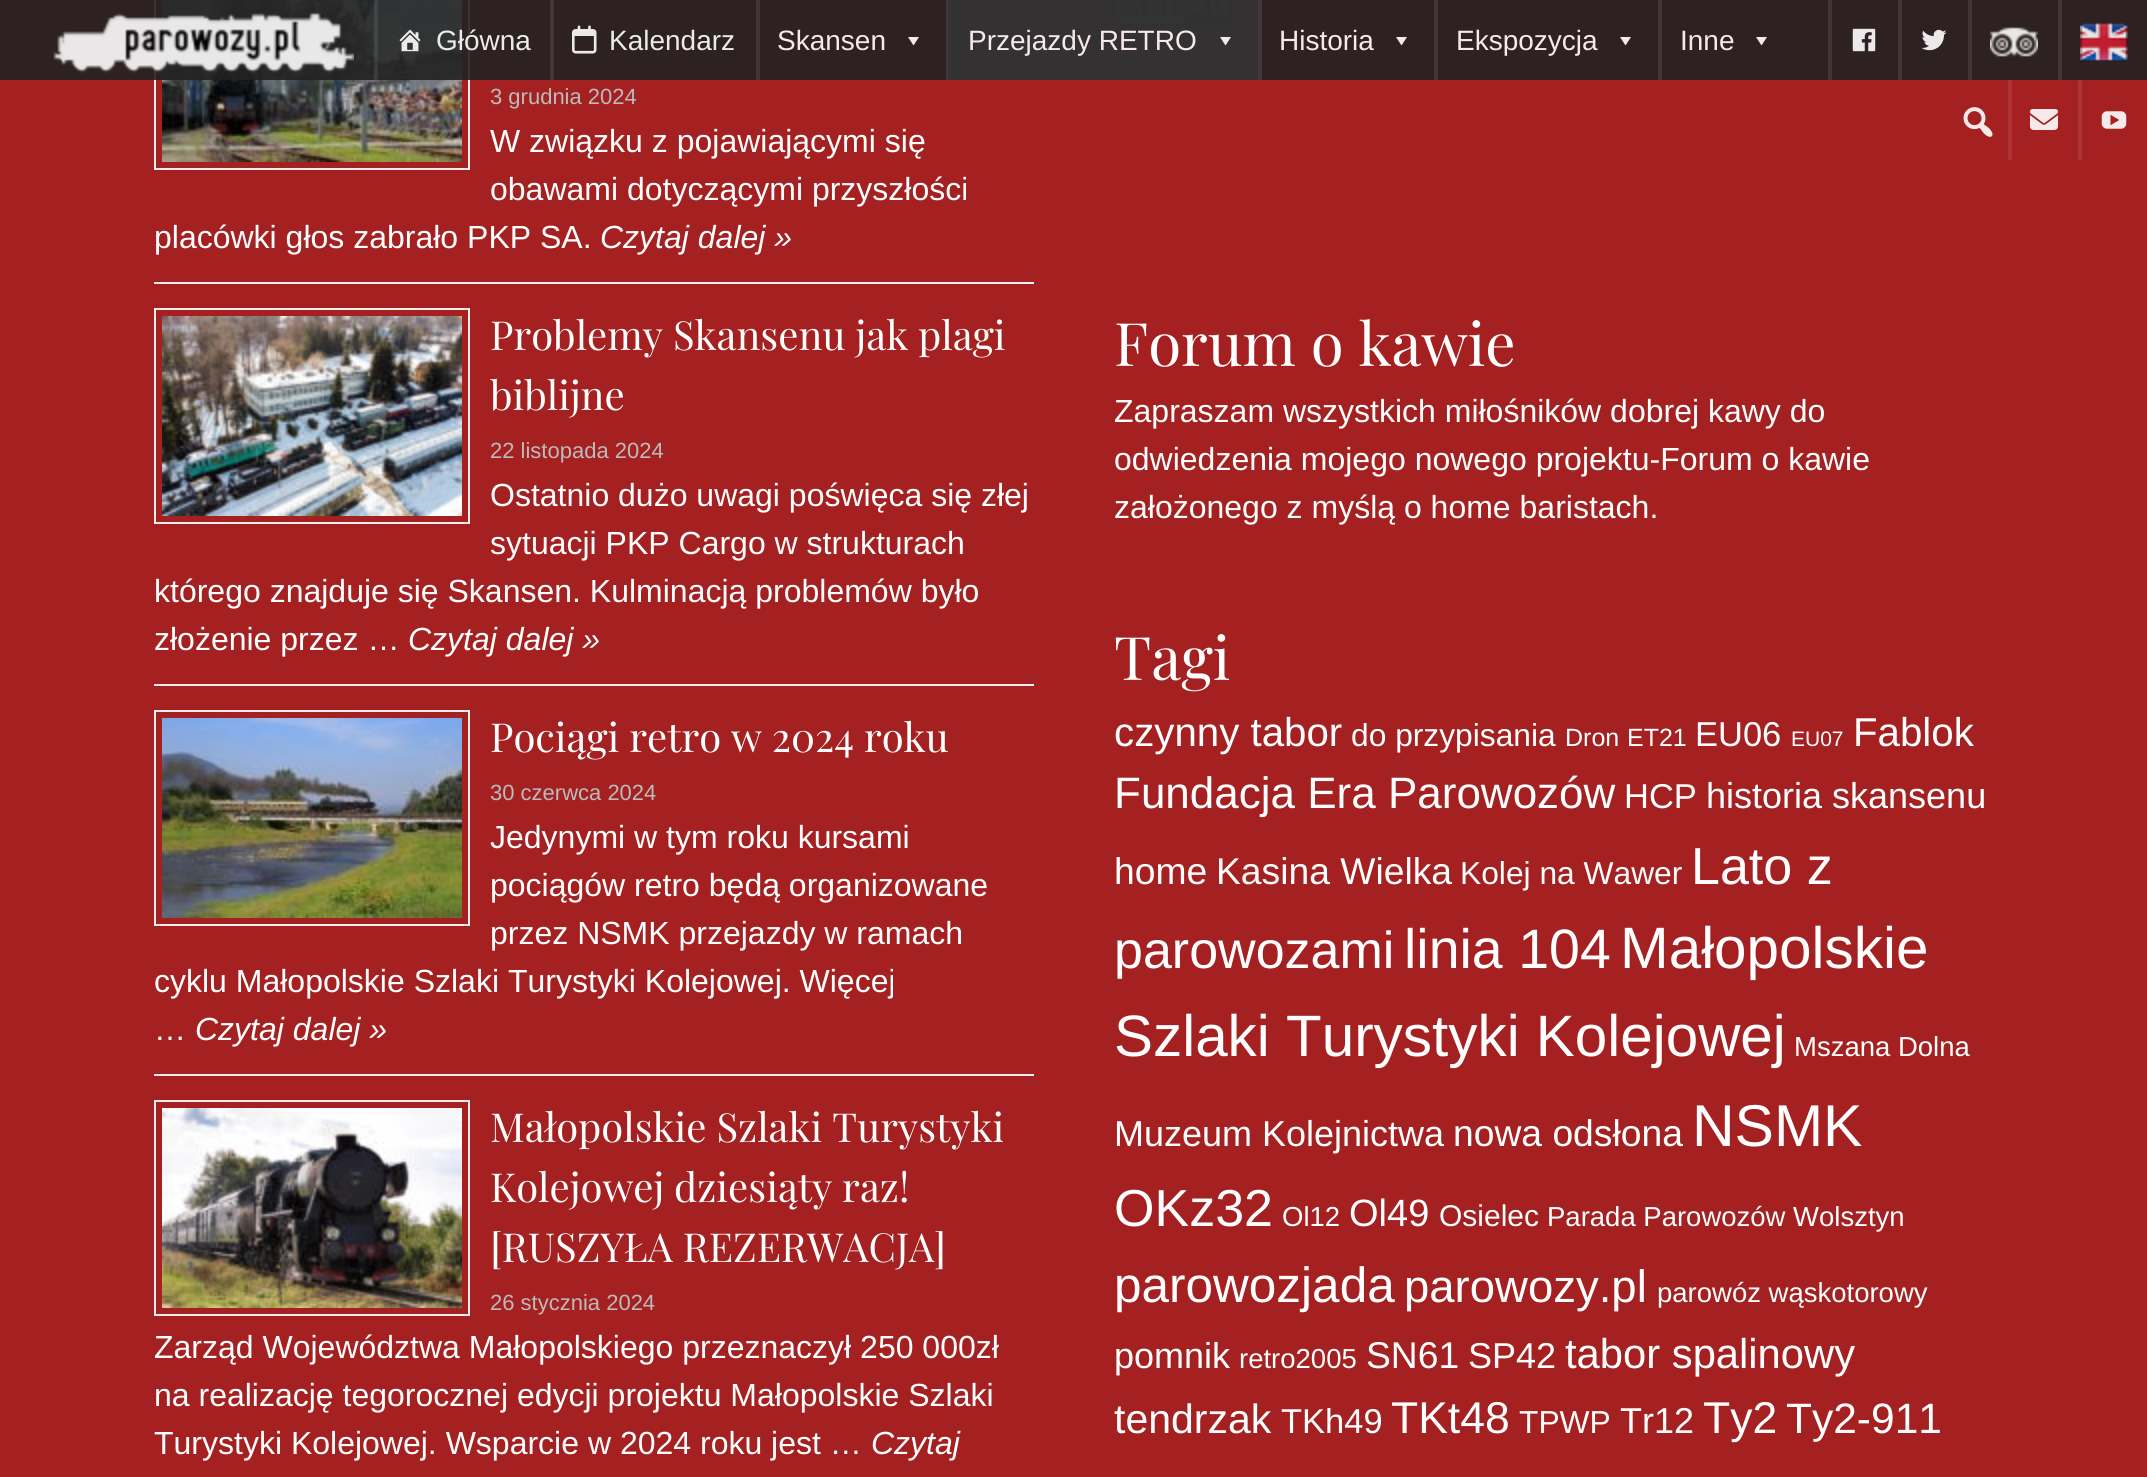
#include <cairo.h>
#include <math.h>
#include <stddef.h>


static void picture(cairo_t *cr, const char *path, double x, double y, double w, double h) {
    cairo_surface_t *image = cairo_image_surface_create_from_png(path);
    cairo_save(cr);
    cairo_set_source_surface(cr, image, x, y);
    cairo_rectangle(cr, x, y, w, h);
    cairo_fill(cr);
    cairo_restore(cr);
    cairo_surface_destroy(image);
}

int main(void) {
    cairo_surface_t *surface = cairo_image_surface_create(CAIRO_FORMAT_RGB24, 2147, 1477);
    cairo_t *cr = cairo_create(surface);
    cairo_font_options_t *options = cairo_font_options_create();
    cairo_font_options_set_hint_metrics(options, CAIRO_HINT_METRICS_OFF);
    cairo_font_options_set_hint_style(options, CAIRO_HINT_STYLE_NONE);
    cairo_set_font_options(cr, options);
    cairo_set_miter_limit(cr, 4);
    cairo_set_source_rgb(cr, 0.647, 0.125, 0.125);
    cairo_paint(cr);
    cairo_rectangle(cr, 155, -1, 314, 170);
    cairo_set_source_rgb(cr, 0.933, 0.933, 0.933);
    cairo_stroke(cr);
    picture(cr, "img11.png", 162, 0, 300, 162);
    picture(cr, "img15.png", 1114, 0, 120, 26);
    cairo_set_source_rgba(cr, 0.133, 0.133, 0.133, 0.9);
    cairo_rectangle(cr, 0, 0, 2147, 80);
    cairo_fill(cr);
    picture(cr, "img1.png", 53, 12, 301, 61);
    cairo_set_source_rgba(cr, 1, 1, 1, 0.09);
    cairo_rectangle(cr, 376, 0, 2, 80);
    cairo_fill(cr);
    cairo_rectangle(cr, 374, 0, 2, 80);
    cairo_fill(cr);
    picture(cr, "img2.png", 399, 29, 22, 23);
    cairo_select_font_face(cr, "Liberation Sans", CAIRO_FONT_SLANT_NORMAL, CAIRO_FONT_WEIGHT_NORMAL);
    cairo_set_font_size(cr, 28);
    cairo_set_source_rgb(cr, 0.918, 0.918, 0.918);
    cairo_move_to(cr, 436, 50);
    cairo_show_text(cr, "Główna");
    cairo_set_source_rgba(cr, 1, 1, 1, 0.09);
    cairo_rectangle(cr, 552, 0, 2, 80);
    cairo_fill(cr);
    cairo_rectangle(cr, 550, 0, 2, 80);
    cairo_fill(cr);
    picture(cr, "img3.png", 572, 25, 25, 29);
    cairo_set_source_rgb(cr, 0.918, 0.918, 0.918);
    cairo_move_to(cr, 609, 50);
    cairo_show_text(cr, "Kalendarz");
    cairo_set_source_rgb(cr, 0.263, 0.212, 0.212);
    cairo_rectangle(cr, 756, 0, 4, 80);
    cairo_fill(cr);
    cairo_set_source_rgb(cr, 0.965, 0.914, 0.914);
    cairo_move_to(cr, 777, 50);
    cairo_show_text(cr, "Skansen");
    cairo_new_path(cr);
    cairo_move_to(cr, 919, 37);
    cairo_line_to(cr, 913.5, 45.5);
    cairo_line_to(cr, 908, 37);
    cairo_close_path(cr);
    cairo_fill(cr);
    cairo_set_source_rgb(cr, 0.263, 0.212, 0.212);
    cairo_rectangle(cr, 946, 0, 4, 80);
    cairo_fill(cr);
    cairo_set_source_rgba(cr, 0.2, 0.2, 0.2, 0.9);
    cairo_rectangle(cr, 948, 0, 310, 80);
    cairo_fill(cr);
    cairo_set_source_rgb(cr, 0.965, 0.914, 0.914);
    cairo_move_to(cr, 968, 50);
    cairo_show_text(cr, "Przejazdy RETRO");
    cairo_new_path(cr);
    cairo_move_to(cr, 1231, 37);
    cairo_line_to(cr, 1225.5, 45.5);
    cairo_line_to(cr, 1220, 37);
    cairo_close_path(cr);
    cairo_fill(cr);
    cairo_set_source_rgb(cr, 0.263, 0.212, 0.212);
    cairo_rectangle(cr, 1258, 0, 4, 80);
    cairo_fill(cr);
    cairo_set_source_rgb(cr, 0.965, 0.914, 0.914);
    cairo_move_to(cr, 1279, 50);
    cairo_show_text(cr, "Historia");
    cairo_new_path(cr);
    cairo_move_to(cr, 1407, 37);
    cairo_line_to(cr, 1401.5, 45.5);
    cairo_line_to(cr, 1396, 37);
    cairo_close_path(cr);
    cairo_fill(cr);
    cairo_set_source_rgb(cr, 0.263, 0.212, 0.212);
    cairo_rectangle(cr, 1434, 0, 4, 80);
    cairo_fill(cr);
    cairo_set_source_rgb(cr, 0.965, 0.914, 0.914);
    cairo_move_to(cr, 1456, 50);
    cairo_show_text(cr, "Ekspozycja");
    cairo_new_path(cr);
    cairo_move_to(cr, 1631, 37);
    cairo_line_to(cr, 1625.5, 45.5);
    cairo_line_to(cr, 1620, 37);
    cairo_close_path(cr);
    cairo_fill(cr);
    cairo_set_source_rgb(cr, 0.263, 0.212, 0.212);
    cairo_rectangle(cr, 1658, 0, 4, 80);
    cairo_fill(cr);
    cairo_set_source_rgb(cr, 0.965, 0.914, 0.914);
    cairo_move_to(cr, 1680, 50);
    cairo_show_text(cr, "Inne");
    cairo_new_path(cr);
    cairo_move_to(cr, 1767, 37);
    cairo_line_to(cr, 1761.5, 45.5);
    cairo_line_to(cr, 1756, 37);
    cairo_close_path(cr);
    cairo_fill(cr);
    cairo_set_source_rgb(cr, 0.263, 0.212, 0.212);
    cairo_rectangle(cr, 1828, 0, 4, 80);
    cairo_fill(cr);
    picture(cr, "img4.png", 1852, 28, 24, 24);
    cairo_rectangle(cr, 1898, 0, 4, 80);
    cairo_fill(cr);
    picture(cr, "img5.png", 1921, 29, 26, 22);
    cairo_rectangle(cr, 1968, 0, 4, 80);
    cairo_fill(cr);
    picture(cr, "img6.png", 1990, 27, 48, 30);
    cairo_rectangle(cr, 2058, 0, 4, 80);
    cairo_fill(cr);
    picture(cr, "img7.png", 2080, 22, 48, 40);
    picture(cr, "img8.png", 1963, 107, 30, 30);
    cairo_set_source_rgb(cr, 0.678, 0.204, 0.204);
    cairo_rectangle(cr, 2008, 80, 4, 80);
    cairo_fill(cr);
    picture(cr, "img9.png", 2030, 109, 28, 21);
    cairo_rectangle(cr, 2078, 80, 4, 80);
    cairo_fill(cr);
    picture(cr, "img10.png", 2101, 111, 26, 18);
    cairo_set_source_rgb(cr, 0.933, 0.933, 0.933);
    cairo_rectangle(cr, 154, 282, 880, 2);
    cairo_fill(cr);
    cairo_set_font_size(cr, 22);
    cairo_set_source_rgb(cr, 0.733, 0.733, 0.733);
    cairo_move_to(cr, 490, 104);
    cairo_show_text(cr, "3 grudnia 2024");
    cairo_set_font_size(cr, 32);
    cairo_set_source_rgb(cr, 1, 1, 1);
    cairo_move_to(cr, 490, 152);
    cairo_show_text(cr, "W związku z pojawiającymi się");
    cairo_move_to(cr, 490, 200);
    cairo_show_text(cr, "obawami dotyczącymi przyszłości");
    cairo_move_to(cr, 154, 248);
    cairo_show_text(cr, "placówki głos zabrało PKP SA.");
    cairo_select_font_face(cr, "Liberation Sans", CAIRO_FONT_SLANT_ITALIC, CAIRO_FONT_WEIGHT_NORMAL);
    cairo_move_to(cr, 600, 248);
    cairo_show_text(cr, "Czytaj dalej »");
    cairo_set_source_rgb(cr, 0.933, 0.933, 0.933);
    cairo_rectangle(cr, 154, 684, 880, 2);
    cairo_fill(cr);
    cairo_rectangle(cr, 155, 309, 314, 214);
    cairo_stroke(cr);
    picture(cr, "img12.png", 162, 316, 300, 200);
    cairo_select_font_face(cr, "Playfair Display", CAIRO_FONT_SLANT_NORMAL, CAIRO_FONT_WEIGHT_NORMAL);
    cairo_set_font_size(cr, 40);
    cairo_set_source_rgb(cr, 1, 1, 1);
    cairo_move_to(cr, 490, 350);
    cairo_show_text(cr, "Problemy Skansenu jak plagi");
    cairo_move_to(cr, 490, 410);
    cairo_show_text(cr, "biblijne");
    cairo_select_font_face(cr, "Liberation Sans", CAIRO_FONT_SLANT_NORMAL, CAIRO_FONT_WEIGHT_NORMAL);
    cairo_set_font_size(cr, 22);
    cairo_set_source_rgb(cr, 0.733, 0.733, 0.733);
    cairo_move_to(cr, 490, 458);
    cairo_show_text(cr, "22 listopada 2024");
    cairo_set_font_size(cr, 32);
    cairo_set_source_rgb(cr, 1, 1, 1);
    cairo_move_to(cr, 490, 506);
    cairo_show_text(cr, "Ostatnio dużo uwagi poświęca się złej");
    cairo_move_to(cr, 490, 554);
    cairo_show_text(cr, "sytuacji PKP Cargo w strukturach");
    cairo_move_to(cr, 154, 602);
    cairo_show_text(cr, "którego znajduje się Skansen. Kulminacją problemów było");
    cairo_move_to(cr, 154, 650);
    cairo_show_text(cr, "złożenie przez …");
    cairo_select_font_face(cr, "Liberation Sans", CAIRO_FONT_SLANT_ITALIC, CAIRO_FONT_WEIGHT_NORMAL);
    cairo_move_to(cr, 408, 650);
    cairo_show_text(cr, "Czytaj dalej »");
    cairo_set_source_rgb(cr, 0.933, 0.933, 0.933);
    cairo_rectangle(cr, 154, 1074, 880, 2);
    cairo_fill(cr);
    cairo_rectangle(cr, 155, 711, 314, 214);
    cairo_stroke(cr);
    picture(cr, "img13.png", 162, 718, 300, 200);
    cairo_select_font_face(cr, "Playfair Display", CAIRO_FONT_SLANT_NORMAL, CAIRO_FONT_WEIGHT_NORMAL);
    cairo_set_font_size(cr, 40);
    cairo_set_source_rgb(cr, 1, 1, 1);
    cairo_move_to(cr, 490, 752);
    cairo_show_text(cr, "Pociągi retro w 2024 roku");
    cairo_select_font_face(cr, "Liberation Sans", CAIRO_FONT_SLANT_NORMAL, CAIRO_FONT_WEIGHT_NORMAL);
    cairo_set_font_size(cr, 22);
    cairo_set_source_rgb(cr, 0.733, 0.733, 0.733);
    cairo_move_to(cr, 490, 800);
    cairo_show_text(cr, "30 czerwca 2024");
    cairo_set_font_size(cr, 32);
    cairo_set_source_rgb(cr, 1, 1, 1);
    cairo_move_to(cr, 490, 848);
    cairo_show_text(cr, "Jedynymi w tym roku kursami");
    cairo_move_to(cr, 490, 896);
    cairo_show_text(cr, "pociągów retro będą organizowane");
    cairo_move_to(cr, 490, 944);
    cairo_show_text(cr, "przez NSMK przejazdy w ramach");
    cairo_move_to(cr, 154, 992);
    cairo_show_text(cr, "cyklu Małopolskie Szlaki Turystyki Kolejowej. Więcej");
    cairo_move_to(cr, 154, 1040);
    cairo_show_text(cr, "…");
    cairo_select_font_face(cr, "Liberation Sans", CAIRO_FONT_SLANT_ITALIC, CAIRO_FONT_WEIGHT_NORMAL);
    cairo_move_to(cr, 195, 1040);
    cairo_show_text(cr, "Czytaj dalej »");
    cairo_rectangle(cr, 155, 1101, 314, 214);
    cairo_set_source_rgb(cr, 0.933, 0.933, 0.933);
    cairo_stroke(cr);
    picture(cr, "img14.png", 162, 1108, 300, 200);
    cairo_select_font_face(cr, "Playfair Display", CAIRO_FONT_SLANT_NORMAL, CAIRO_FONT_WEIGHT_NORMAL);
    cairo_set_font_size(cr, 40);
    cairo_set_source_rgb(cr, 1, 1, 1);
    cairo_move_to(cr, 490, 1142);
    cairo_show_text(cr, "Małopolskie Szlaki Turystyki");
    cairo_move_to(cr, 490, 1202);
    cairo_show_text(cr, "Kolejowej dziesiąty raz!");
    cairo_move_to(cr, 490, 1262);
    cairo_show_text(cr, "[RUSZYŁA REZERWACJA]");
    cairo_select_font_face(cr, "Liberation Sans", CAIRO_FONT_SLANT_NORMAL, CAIRO_FONT_WEIGHT_NORMAL);
    cairo_set_font_size(cr, 22);
    cairo_set_source_rgb(cr, 0.733, 0.733, 0.733);
    cairo_move_to(cr, 490, 1310);
    cairo_show_text(cr, "26 stycznia 2024");
    cairo_set_font_size(cr, 32);
    cairo_set_source_rgb(cr, 1, 1, 1);
    cairo_move_to(cr, 154, 1358);
    cairo_show_text(cr, "Zarząd Województwa Małopolskiego przeznaczył 250 000zł");
    cairo_move_to(cr, 154, 1406);
    cairo_show_text(cr, "na realizację tegorocznej edycji projektu Małopolskie Szlaki");
    cairo_move_to(cr, 154, 1454);
    cairo_show_text(cr, "Turystyki Kolejowej. Wsparcie w 2024 roku jest …");
    cairo_select_font_face(cr, "Liberation Sans", CAIRO_FONT_SLANT_ITALIC, CAIRO_FONT_WEIGHT_NORMAL);
    cairo_move_to(cr, 871, 1454);
    cairo_show_text(cr, "Czytaj");
    cairo_select_font_face(cr, "Playfair Display", CAIRO_FONT_SLANT_NORMAL, CAIRO_FONT_WEIGHT_NORMAL);
    cairo_set_font_size(cr, 60);
    cairo_move_to(cr, 1114, 366);
    cairo_show_text(cr, "Forum o kawie");
    cairo_select_font_face(cr, "Liberation Sans", CAIRO_FONT_SLANT_NORMAL, CAIRO_FONT_WEIGHT_NORMAL);
    cairo_set_font_size(cr, 32);
    cairo_move_to(cr, 1114, 422);
    cairo_show_text(cr, "Zapraszam wszystkich miłośników dobrej kawy do");
    cairo_move_to(cr, 1114, 470);
    cairo_show_text(cr, "odwiedzenia mojego nowego projektu-Forum o kawie");
    cairo_move_to(cr, 1114, 518);
    cairo_show_text(cr, "założonego z myślą o home baristach.");
    cairo_select_font_face(cr, "Playfair Display", CAIRO_FONT_SLANT_NORMAL, CAIRO_FONT_WEIGHT_NORMAL);
    cairo_set_font_size(cr, 60);
    cairo_move_to(cr, 1114, 680);
    cairo_show_text(cr, "Tagi");
    cairo_select_font_face(cr, "Liberation Sans", CAIRO_FONT_SLANT_NORMAL, CAIRO_FONT_WEIGHT_NORMAL);
    cairo_set_font_size(cr, 40.25);
    cairo_move_to(cr, 1114, 746);
    cairo_show_text(cr, "czynny tabor");
    cairo_set_font_size(cr, 31.75);
    cairo_move_to(cr, 1351, 746);
    cairo_show_text(cr, "do przypisania");
    cairo_set_font_size(cr, 25);
    cairo_move_to(cr, 1565, 746);
    cairo_show_text(cr, "Dron");
    cairo_move_to(cr, 1627, 746);
    cairo_show_text(cr, "ET21");
    cairo_set_font_size(cr, 34.5);
    cairo_move_to(cr, 1695, 746);
    cairo_show_text(cr, "EU06");
    cairo_set_font_size(cr, 21);
    cairo_move_to(cr, 1791, 746);
    cairo_show_text(cr, "EU07");
    cairo_set_font_size(cr, 40.25);
    cairo_move_to(cr, 1853, 746);
    cairo_show_text(cr, "Fablok");
    cairo_set_font_size(cr, 44);
    cairo_move_to(cr, 1114, 808);
    cairo_show_text(cr, "Fundacja Era Parowozów");
    cairo_set_font_size(cr, 34.5);
    cairo_move_to(cr, 1624, 808);
    cairo_show_text(cr, "HCP");
    cairo_set_font_size(cr, 36);
    cairo_move_to(cr, 1706, 808);
    cairo_show_text(cr, "historia skansenu");
    cairo_set_font_size(cr, 37.25);
    cairo_move_to(cr, 1114, 884);
    cairo_show_text(cr, "home");
    cairo_move_to(cr, 1216, 884);
    cairo_show_text(cr, "Kasina Wielka");
    cairo_set_font_size(cr, 31.75);
    cairo_move_to(cr, 1460, 884);
    cairo_show_text(cr, "Kolej na Wawer");
    cairo_set_font_size(cr, 52);
    cairo_move_to(cr, 1691, 884);
    cairo_show_text(cr, "Lato z");
    cairo_move_to(cr, 1114, 968);
    cairo_show_text(cr, "parowozami");
    cairo_set_font_size(cr, 55.5);
    cairo_move_to(cr, 1404, 968);
    cairo_show_text(cr, "linia 104");
    cairo_set_font_size(cr, 58.4);
    cairo_move_to(cr, 1620, 968);
    cairo_show_text(cr, "Małopolskie");
    cairo_move_to(cr, 1114, 1056);
    cairo_show_text(cr, "Szlaki Turystyki Kolejowej");
    cairo_set_font_size(cr, 27.5);
    cairo_move_to(cr, 1794, 1056);
    cairo_show_text(cr, "Mszana Dolna");
    cairo_set_font_size(cr, 36);
    cairo_move_to(cr, 1114, 1146);
    cairo_show_text(cr, "Muzeum Kolejnictwa");
    cairo_set_font_size(cr, 37.25);
    cairo_move_to(cr, 1453, 1146);
    cairo_show_text(cr, "nowa odsłona");
    cairo_set_font_size(cr, 59);
    cairo_move_to(cr, 1692, 1146);
    cairo_show_text(cr, "NSMK");
    cairo_set_font_size(cr, 52);
    cairo_move_to(cr, 1114, 1226);
    cairo_show_text(cr, "OKz32");
    cairo_set_font_size(cr, 27.5);
    cairo_move_to(cr, 1282, 1226);
    cairo_show_text(cr, "Ol12");
    cairo_set_font_size(cr, 38);
    cairo_move_to(cr, 1349, 1226);
    cairo_show_text(cr, "Ol49");
    cairo_set_font_size(cr, 30);
    cairo_move_to(cr, 1439, 1226);
    cairo_show_text(cr, "Osielec");
    cairo_set_font_size(cr, 27.5);
    cairo_move_to(cr, 1547, 1226);
    cairo_show_text(cr, "Parada Parowozów Wolsztyn");
    cairo_set_font_size(cr, 49.5);
    cairo_move_to(cr, 1114, 1302);
    cairo_show_text(cr, "parowozjada");
    cairo_set_font_size(cr, 45.5);
    cairo_move_to(cr, 1404, 1302);
    cairo_show_text(cr, "parowozy.pl");
    cairo_set_font_size(cr, 27.5);
    cairo_move_to(cr, 1657, 1302);
    cairo_show_text(cr, "parowóz wąskotorowy");
    cairo_set_font_size(cr, 36);
    cairo_move_to(cr, 1114, 1368);
    cairo_show_text(cr, "pomnik");
    cairo_set_font_size(cr, 27.5);
    cairo_move_to(cr, 1239, 1368);
    cairo_show_text(cr, "retro2005");
    cairo_set_font_size(cr, 37.25);
    cairo_move_to(cr, 1366, 1368);
    cairo_show_text(cr, "SN61");
    cairo_set_font_size(cr, 36);
    cairo_move_to(cr, 1468, 1368);
    cairo_show_text(cr, "SP42");
    cairo_set_font_size(cr, 41.75);
    cairo_move_to(cr, 1565, 1368);
    cairo_show_text(cr, "tabor spalinowy");
    cairo_set_font_size(cr, 41);
    cairo_move_to(cr, 1114, 1433);
    cairo_show_text(cr, "tendrzak");
    cairo_set_font_size(cr, 34.5);
    cairo_move_to(cr, 1281, 1433);
    cairo_show_text(cr, "TKh49");
    cairo_set_font_size(cr, 44.5);
    cairo_move_to(cr, 1391, 1433);
    cairo_show_text(cr, "TKt48");
    cairo_set_font_size(cr, 31.75);
    cairo_move_to(cr, 1519, 1433);
    cairo_show_text(cr, "TPWP");
    cairo_set_font_size(cr, 36);
    cairo_move_to(cr, 1620, 1433);
    cairo_show_text(cr, "Tr12");
    cairo_set_font_size(cr, 44.5);
    cairo_move_to(cr, 1703, 1433);
    cairo_show_text(cr, "Ty2");
    cairo_set_font_size(cr, 42.5);
    cairo_move_to(cr, 1786, 1433);
    cairo_show_text(cr, "Ty2-911");
    cairo_surface_write_to_png(surface, "page.png");
    cairo_font_options_destroy(options);
    cairo_destroy(cr);
    cairo_surface_destroy(surface);
    return 0;
}
